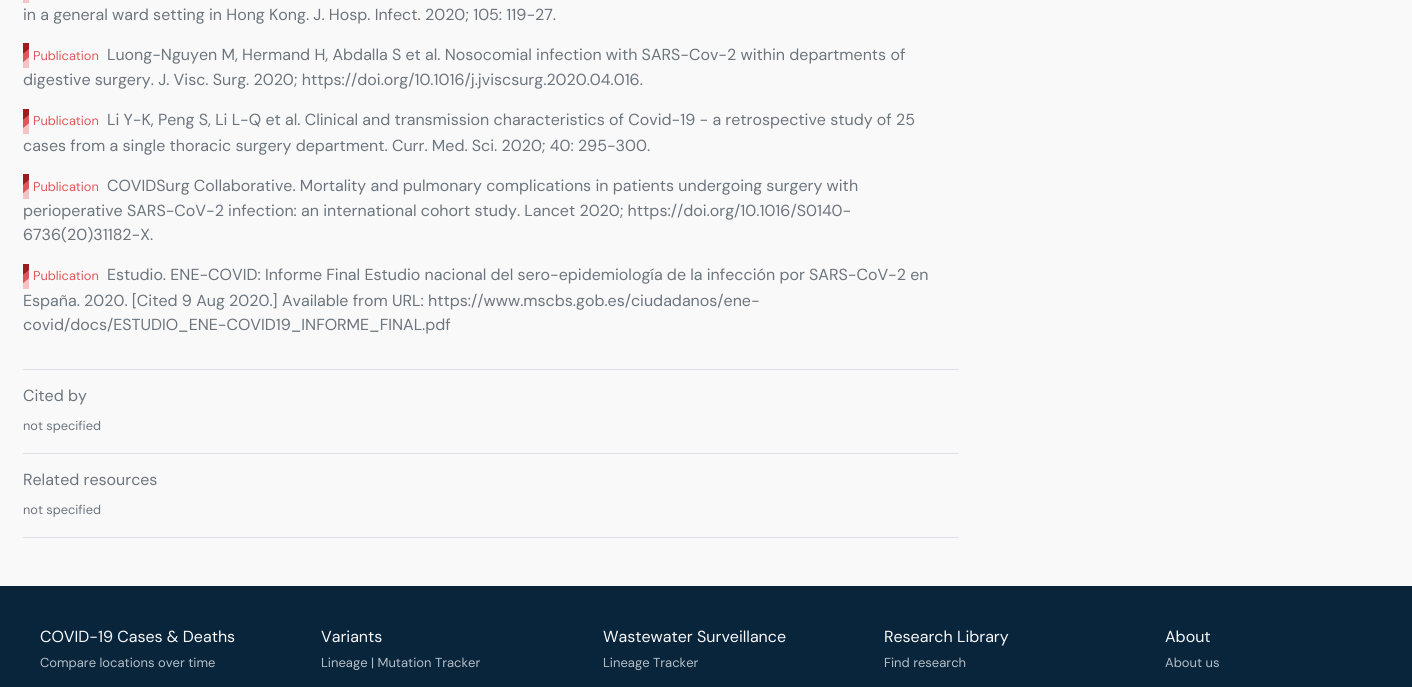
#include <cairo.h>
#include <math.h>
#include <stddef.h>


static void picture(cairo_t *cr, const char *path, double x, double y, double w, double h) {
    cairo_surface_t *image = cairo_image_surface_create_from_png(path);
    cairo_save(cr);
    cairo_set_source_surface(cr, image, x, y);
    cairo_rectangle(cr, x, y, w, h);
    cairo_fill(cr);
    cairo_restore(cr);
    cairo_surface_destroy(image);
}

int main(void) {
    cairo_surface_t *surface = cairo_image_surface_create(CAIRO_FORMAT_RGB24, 1412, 687);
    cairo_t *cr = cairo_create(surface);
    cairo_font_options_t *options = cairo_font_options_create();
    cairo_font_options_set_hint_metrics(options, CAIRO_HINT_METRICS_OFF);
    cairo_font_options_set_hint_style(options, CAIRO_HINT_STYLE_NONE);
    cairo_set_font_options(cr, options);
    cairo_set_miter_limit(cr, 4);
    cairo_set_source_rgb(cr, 0.973, 0.976, 0.98);
    cairo_paint(cr);
    cairo_set_source_rgb(cr, 0.871, 0.886, 0.902);
    cairo_rectangle(cr, 23, 369, 936, 1);
    cairo_fill(cr);
    cairo_set_source_rgb(cr, 0.957, 0.765, 0.769);
    cairo_rectangle(cr, 23, 0, 6, 3);
    cairo_fill(cr);
    cairo_select_font_face(cr, "DM Sans", CAIRO_FONT_SLANT_NORMAL, CAIRO_FONT_WEIGHT_NORMAL);
    cairo_set_font_size(cr, 16);
    cairo_set_source_rgb(cr, 0.424, 0.459, 0.49);
    cairo_move_to(cr, 23, 20);
    cairo_show_text(cr, "in a general ward setting in Hong Kong. J. Hosp. Infect. 2020; 105: 119-27.");
    picture(cr, "img1.png", 23, 43, 6, 25);
    cairo_set_font_size(cr, 12.75);
    cairo_set_source_rgb(cr, 0.882, 0.341, 0.349);
    cairo_move_to(cr, 33, 60);
    cairo_show_text(cr, "Publication");
    cairo_set_font_size(cr, 16);
    cairo_set_source_rgb(cr, 0.424, 0.459, 0.49);
    cairo_move_to(cr, 107, 60);
    cairo_show_text(cr, "Luong-Nguyen M, Hermand H, Abdalla S et al. Nosocomial infection with SARS-Cov-2 within departments of");
    cairo_move_to(cr, 23, 85);
    cairo_show_text(cr, "digestive surgery. J. Visc. Surg. 2020; https://doi.org/10.1016/j.jviscsurg.2020.04.016.");
    picture(cr, "img1.png", 23, 109, 6, 25);
    cairo_set_font_size(cr, 12.75);
    cairo_set_source_rgb(cr, 0.882, 0.341, 0.349);
    cairo_move_to(cr, 33, 125);
    cairo_show_text(cr, "Publication");
    cairo_set_font_size(cr, 16);
    cairo_set_source_rgb(cr, 0.424, 0.459, 0.49);
    cairo_move_to(cr, 107, 125);
    cairo_show_text(cr, "Li Y-K, Peng S, Li L-Q et al. Clinical and transmission characteristics of Covid-19 - a retrospective study of 25");
    cairo_move_to(cr, 23, 151);
    cairo_show_text(cr, "cases from a single thoracic surgery department. Curr. Med. Sci. 2020; 40: 295-300.");
    picture(cr, "img1.png", 23, 174, 6, 25);
    cairo_set_font_size(cr, 12.75);
    cairo_set_source_rgb(cr, 0.882, 0.341, 0.349);
    cairo_move_to(cr, 33, 191);
    cairo_show_text(cr, "Publication");
    cairo_set_font_size(cr, 16);
    cairo_set_source_rgb(cr, 0.424, 0.459, 0.49);
    cairo_move_to(cr, 107, 191);
    cairo_show_text(cr, "COVIDSurg Collaborative. Mortality and pulmonary complications in patients undergoing surgery with");
    cairo_move_to(cr, 23, 216);
    cairo_show_text(cr, "perioperative SARS-CoV-2 infection: an international cohort study. Lancet 2020; https://doi.org/10.1016/S0140-");
    cairo_move_to(cr, 23, 240);
    cairo_show_text(cr, "6736(20)31182-X.");
    picture(cr, "img1.png", 23, 264, 6, 25);
    cairo_set_font_size(cr, 12.75);
    cairo_set_source_rgb(cr, 0.882, 0.341, 0.349);
    cairo_move_to(cr, 33, 280);
    cairo_show_text(cr, "Publication");
    cairo_set_font_size(cr, 16);
    cairo_set_source_rgb(cr, 0.424, 0.459, 0.49);
    cairo_move_to(cr, 107, 280);
    cairo_show_text(cr, "Estudio. ENE-COVID: Informe Final Estudio nacional del sero-epidemiología de la infección por SARS-CoV-2 en");
    cairo_move_to(cr, 23, 306);
    cairo_show_text(cr, "España. 2020. [Cited 9 Aug 2020.] Available from URL: https://www.mscbs.gob.es/ciudadanos/ene-");
    cairo_move_to(cr, 23, 330);
    cairo_show_text(cr, "covid/docs/ESTUDIO_ENE-COVID19_INFORME_FINAL.pdf");
    cairo_set_source_rgb(cr, 0.871, 0.886, 0.902);
    cairo_rectangle(cr, 23, 453, 936, 1);
    cairo_fill(cr);
    cairo_set_source_rgb(cr, 0.424, 0.459, 0.49);
    cairo_move_to(cr, 23, 401);
    cairo_show_text(cr, "Cited by");
    cairo_set_font_size(cr, 12.75);
    cairo_move_to(cr, 23, 430);
    cairo_show_text(cr, "not specified");
    cairo_set_source_rgb(cr, 0.871, 0.886, 0.902);
    cairo_rectangle(cr, 23, 537, 936, 1);
    cairo_fill(cr);
    cairo_set_font_size(cr, 16);
    cairo_set_source_rgb(cr, 0.424, 0.459, 0.49);
    cairo_move_to(cr, 23, 485);
    cairo_show_text(cr, "Related resources");
    cairo_set_font_size(cr, 12.75);
    cairo_move_to(cr, 23, 514);
    cairo_show_text(cr, "not specified");
    cairo_set_source_rgb(cr, 0.039, 0.145, 0.235);
    cairo_rectangle(cr, 0, 586, 1412, 101);
    cairo_fill(cr);
    cairo_set_font_size(cr, 16);
    cairo_set_source_rgb(cr, 0.973, 0.976, 0.98);
    cairo_move_to(cr, 40, 642);
    cairo_show_text(cr, "COVID-19 Cases & Deaths");
    cairo_set_font_size(cr, 13);
    cairo_set_source_rgb(cr, 0.714, 0.745, 0.773);
    cairo_move_to(cr, 40, 667);
    cairo_show_text(cr, "Compare locations over time");
    cairo_set_font_size(cr, 16);
    cairo_set_source_rgb(cr, 0.973, 0.976, 0.98);
    cairo_move_to(cr, 321, 642);
    cairo_show_text(cr, "Variants");
    cairo_set_font_size(cr, 13);
    cairo_set_source_rgb(cr, 0.714, 0.745, 0.773);
    cairo_move_to(cr, 321, 667);
    cairo_show_text(cr, "Lineage | Mutation Tracker");
    cairo_set_font_size(cr, 16);
    cairo_set_source_rgb(cr, 0.973, 0.976, 0.98);
    cairo_move_to(cr, 603, 642);
    cairo_show_text(cr, "Wastewater Surveillance");
    cairo_set_font_size(cr, 13);
    cairo_set_source_rgb(cr, 0.714, 0.745, 0.773);
    cairo_move_to(cr, 603, 667);
    cairo_show_text(cr, "Lineage Tracker");
    cairo_set_font_size(cr, 16);
    cairo_set_source_rgb(cr, 0.973, 0.976, 0.98);
    cairo_move_to(cr, 884, 642);
    cairo_show_text(cr, "Research Library");
    cairo_set_font_size(cr, 13);
    cairo_set_source_rgb(cr, 0.714, 0.745, 0.773);
    cairo_move_to(cr, 884, 667);
    cairo_show_text(cr, "Find research");
    cairo_set_font_size(cr, 16);
    cairo_set_source_rgb(cr, 0.973, 0.976, 0.98);
    cairo_move_to(cr, 1165, 642);
    cairo_show_text(cr, "About");
    cairo_set_font_size(cr, 13);
    cairo_set_source_rgb(cr, 0.714, 0.745, 0.773);
    cairo_move_to(cr, 1165, 667);
    cairo_show_text(cr, "About us");
    cairo_surface_write_to_png(surface, "page.png");
    cairo_font_options_destroy(options);
    cairo_destroy(cr);
    cairo_surface_destroy(surface);
    return 0;
}
